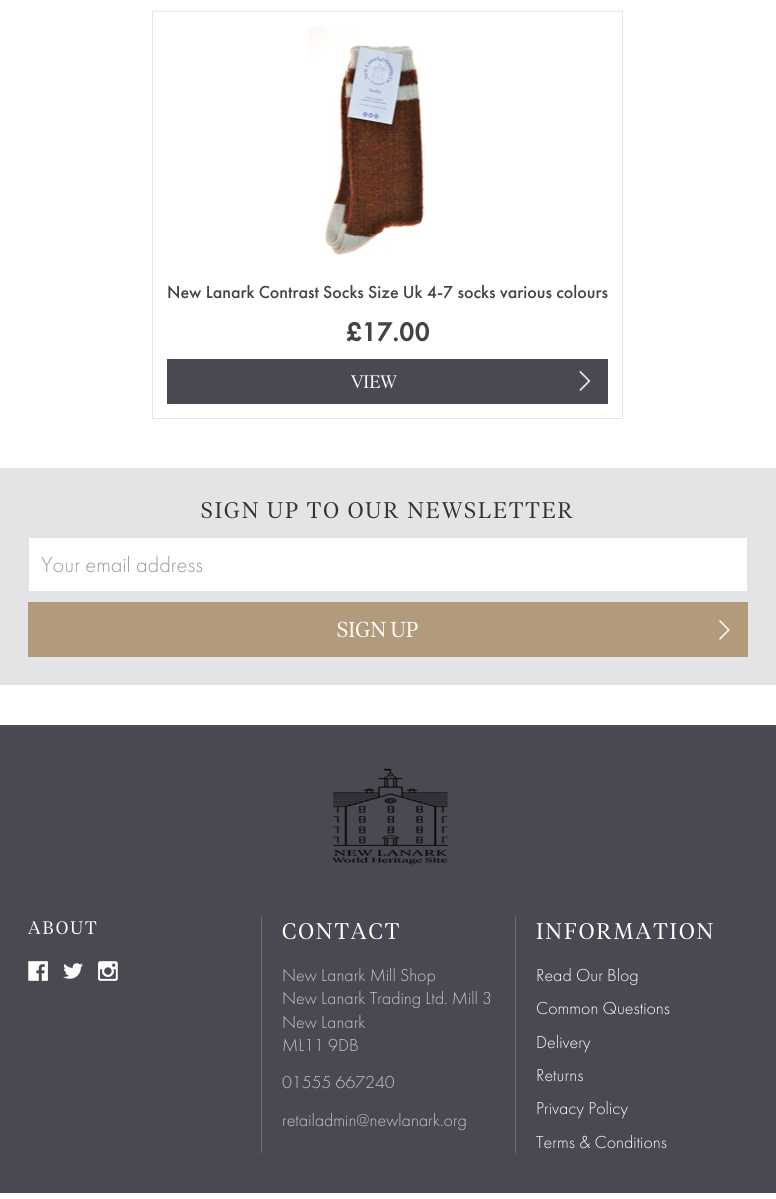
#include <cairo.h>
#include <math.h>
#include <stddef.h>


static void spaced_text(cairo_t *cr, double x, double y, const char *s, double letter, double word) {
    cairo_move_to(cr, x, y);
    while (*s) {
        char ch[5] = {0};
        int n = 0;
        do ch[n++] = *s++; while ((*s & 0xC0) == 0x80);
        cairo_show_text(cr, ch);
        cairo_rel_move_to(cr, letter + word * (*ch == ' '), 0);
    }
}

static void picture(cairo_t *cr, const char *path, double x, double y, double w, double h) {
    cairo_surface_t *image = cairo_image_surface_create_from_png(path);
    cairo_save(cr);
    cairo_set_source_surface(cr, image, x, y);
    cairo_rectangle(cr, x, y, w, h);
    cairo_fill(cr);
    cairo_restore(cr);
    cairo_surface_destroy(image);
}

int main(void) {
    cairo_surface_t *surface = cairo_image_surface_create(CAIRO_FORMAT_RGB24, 776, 1199);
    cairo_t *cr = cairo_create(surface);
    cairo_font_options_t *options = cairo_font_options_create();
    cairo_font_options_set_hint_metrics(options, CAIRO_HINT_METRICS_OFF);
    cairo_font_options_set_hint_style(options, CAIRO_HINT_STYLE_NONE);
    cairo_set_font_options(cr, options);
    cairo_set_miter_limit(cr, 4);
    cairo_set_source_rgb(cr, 1, 1, 1);
    cairo_paint(cr);
    cairo_rectangle(cr, 152.5, 11.5, 470, 407);
    cairo_set_source_rgb(cr, 0.898, 0.898, 0.898);
    cairo_set_line_width(cr, 1);
    cairo_stroke(cr);
    picture(cr, "img1.png", 308, 26, 117, 230);
    cairo_select_font_face(cr, "Futura PT Medium", CAIRO_FONT_SLANT_NORMAL, CAIRO_FONT_WEIGHT_NORMAL);
    cairo_set_font_size(cr, 18);
    cairo_set_source_rgb(cr, 0.267, 0.267, 0.267);
    cairo_move_to(cr, 167, 298);
    cairo_show_text(cr, "New Lanark Contrast Socks Size Uk 4-7 socks various colours");
    cairo_select_font_face(cr, "Futura PT", CAIRO_FONT_SLANT_NORMAL, CAIRO_FONT_WEIGHT_BOLD);
    cairo_set_font_size(cr, 27);
    cairo_move_to(cr, 346, 341);
    cairo_show_text(cr, "£17.00");
    cairo_set_source_rgb(cr, 0.282, 0.286, 0.318);
    cairo_rectangle(cr, 167, 359, 441, 45);
    cairo_fill(cr);
    cairo_select_font_face(cr, "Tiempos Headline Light", CAIRO_FONT_SLANT_NORMAL, CAIRO_FONT_WEIGHT_NORMAL);
    cairo_set_font_size(cr, 18);
    cairo_set_source_rgb(cr, 1, 1, 1);
    cairo_move_to(cr, 351, 388);
    cairo_show_text(cr, "VIEW");
    picture(cr, "img2.png", 579, 370, 12, 21);
    cairo_set_source_rgb(cr, 0.894, 0.894, 0.906);
    cairo_rectangle(cr, 0, 468, 776, 217);
    cairo_fill(cr);
    cairo_set_font_size(cr, 22.5);
    cairo_set_source_rgb(cr, 0.2, 0.2, 0.2);
    spaced_text(cr, 201, 518, "SIGN UP TO OUR NEWSLETTER", 2, 0);
    cairo_set_source_rgb(cr, 1, 1, 1);
    cairo_rectangle(cr, 29, 538, 718, 53);
    cairo_fill(cr);
    cairo_select_font_face(cr, "Futura PT Light", CAIRO_FONT_SLANT_NORMAL, CAIRO_FONT_WEIGHT_NORMAL);
    cairo_set_source_rgb(cr, 0.6, 0.6, 0.6);
    cairo_move_to(cr, 41, 572);
    cairo_show_text(cr, "Your email address");
    cairo_set_source_rgb(cr, 0.698, 0.604, 0.49);
    cairo_rectangle(cr, 28, 602, 720, 55);
    cairo_fill(cr);
    cairo_select_font_face(cr, "Tiempos Headline Light", CAIRO_FONT_SLANT_NORMAL, CAIRO_FONT_WEIGHT_NORMAL);
    cairo_set_font_size(cr, 21.5);
    cairo_set_source_rgb(cr, 1, 1, 1);
    cairo_move_to(cr, 337, 637);
    cairo_show_text(cr, "SIGN UP");
    picture(cr, "img3.png", 719, 620, 11, 20);
    cairo_set_source_rgb(cr, 0.282, 0.286, 0.318);
    cairo_rectangle(cr, 0, 725, 776, 468);
    cairo_fill(cr);
    picture(cr, "img4.png", 332, 768, 116, 97);
    cairo_set_font_size(cr, 18);
    cairo_set_source_rgb(cr, 1, 1, 1);
    spaced_text(cr, 28, 934, "ABOUT", 2, 0);
    picture(cr, "img5.png", 28, 961, 20, 20);
    picture(cr, "img6.png", 63, 963, 20, 16);
    picture(cr, "img7.png", 98, 961, 20, 20);
    cairo_set_source_rgb(cr, 0.427, 0.427, 0.455);
    cairo_rectangle(cr, 261, 917, 1, 236);
    cairo_fill(cr);
    cairo_set_font_size(cr, 22.5);
    cairo_set_source_rgb(cr, 1, 1, 1);
    spaced_text(cr, 282, 939, "CONTACT", 2, 0);
    cairo_select_font_face(cr, "Futura PT Light", CAIRO_FONT_SLANT_NORMAL, CAIRO_FONT_WEIGHT_NORMAL);
    cairo_set_font_size(cr, 18);
    cairo_set_source_rgb(cr, 0.784, 0.784, 0.796);
    cairo_move_to(cr, 282, 981);
    cairo_show_text(cr, "New Lanark Mill Shop");
    cairo_move_to(cr, 282, 1004);
    cairo_show_text(cr, "New Lanark Trading Ltd. Mill 3");
    cairo_move_to(cr, 282, 1028);
    cairo_show_text(cr, "New Lanark");
    cairo_move_to(cr, 282, 1051);
    cairo_show_text(cr, "ML11 9DB");
    cairo_move_to(cr, 282, 1088);
    cairo_show_text(cr, "01555 667240");
    cairo_move_to(cr, 282, 1126);
    cairo_show_text(cr, "retailadmin@newlanark.org");
    cairo_set_source_rgb(cr, 0.427, 0.427, 0.455);
    cairo_rectangle(cr, 515, 917, 1, 236);
    cairo_fill(cr);
    cairo_select_font_face(cr, "Tiempos Headline Light", CAIRO_FONT_SLANT_NORMAL, CAIRO_FONT_WEIGHT_NORMAL);
    cairo_set_font_size(cr, 22.5);
    cairo_set_source_rgb(cr, 1, 1, 1);
    spaced_text(cr, 536, 939, "INFORMATION", 2, 0);
    cairo_select_font_face(cr, "Futura PT Light", CAIRO_FONT_SLANT_NORMAL, CAIRO_FONT_WEIGHT_NORMAL);
    cairo_set_font_size(cr, 18);
    cairo_move_to(cr, 536, 981);
    cairo_show_text(cr, "Read Our Blog");
    cairo_move_to(cr, 536, 1014);
    cairo_show_text(cr, "Common Questions");
    cairo_move_to(cr, 536, 1048);
    cairo_show_text(cr, "Delivery");
    cairo_move_to(cr, 536, 1081);
    cairo_show_text(cr, "Returns");
    cairo_move_to(cr, 536, 1114);
    cairo_show_text(cr, "Privacy Policy");
    cairo_move_to(cr, 536, 1148);
    cairo_show_text(cr, "Terms & Conditions");
    cairo_surface_write_to_png(surface, "page.png");
    cairo_font_options_destroy(options);
    cairo_destroy(cr);
    cairo_surface_destroy(surface);
    return 0;
}
